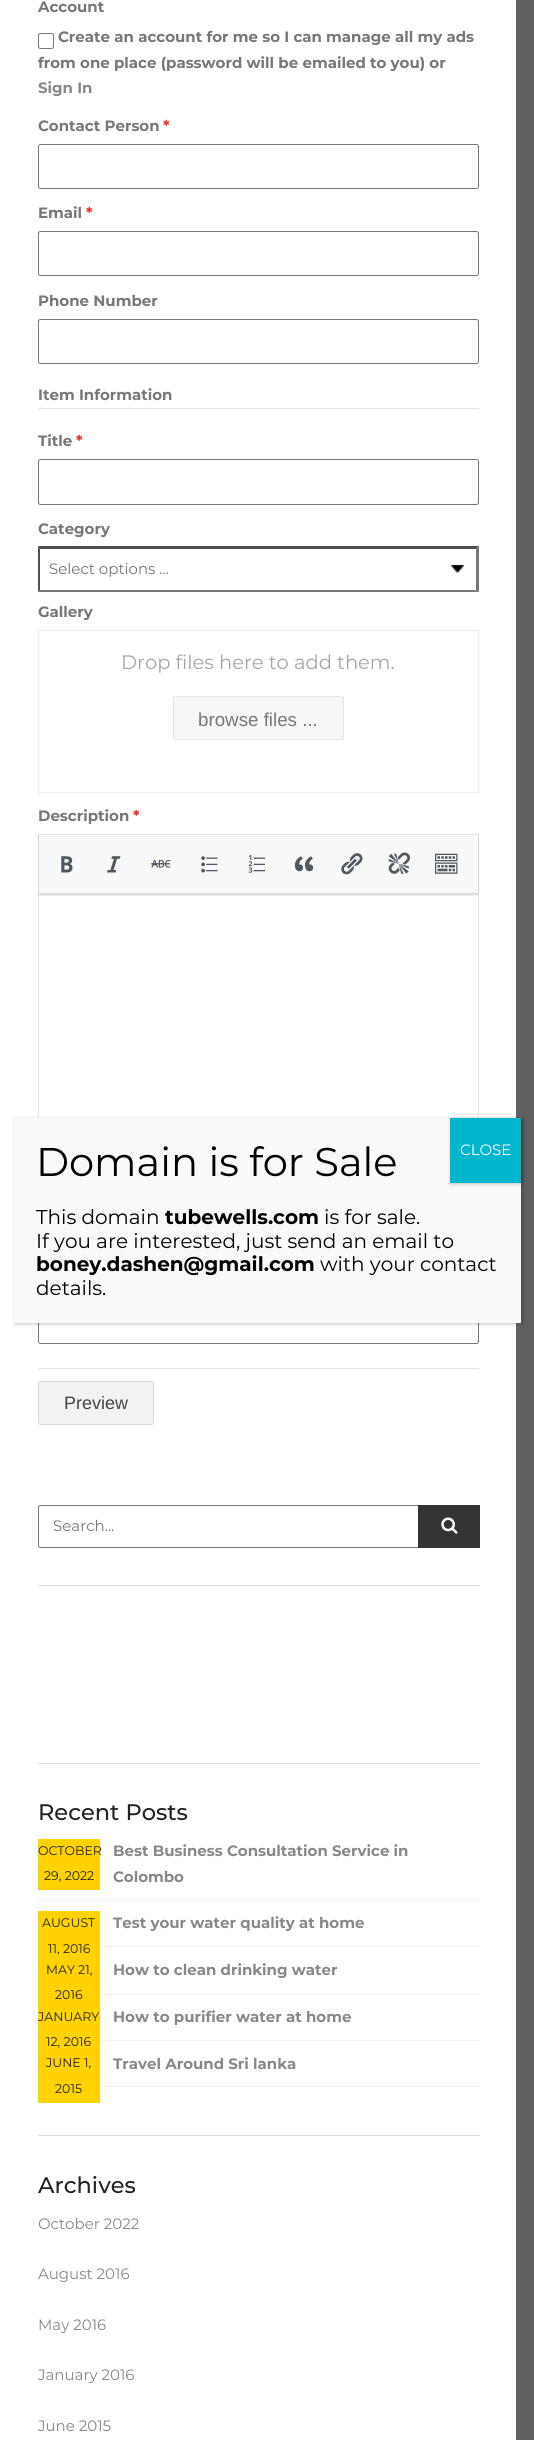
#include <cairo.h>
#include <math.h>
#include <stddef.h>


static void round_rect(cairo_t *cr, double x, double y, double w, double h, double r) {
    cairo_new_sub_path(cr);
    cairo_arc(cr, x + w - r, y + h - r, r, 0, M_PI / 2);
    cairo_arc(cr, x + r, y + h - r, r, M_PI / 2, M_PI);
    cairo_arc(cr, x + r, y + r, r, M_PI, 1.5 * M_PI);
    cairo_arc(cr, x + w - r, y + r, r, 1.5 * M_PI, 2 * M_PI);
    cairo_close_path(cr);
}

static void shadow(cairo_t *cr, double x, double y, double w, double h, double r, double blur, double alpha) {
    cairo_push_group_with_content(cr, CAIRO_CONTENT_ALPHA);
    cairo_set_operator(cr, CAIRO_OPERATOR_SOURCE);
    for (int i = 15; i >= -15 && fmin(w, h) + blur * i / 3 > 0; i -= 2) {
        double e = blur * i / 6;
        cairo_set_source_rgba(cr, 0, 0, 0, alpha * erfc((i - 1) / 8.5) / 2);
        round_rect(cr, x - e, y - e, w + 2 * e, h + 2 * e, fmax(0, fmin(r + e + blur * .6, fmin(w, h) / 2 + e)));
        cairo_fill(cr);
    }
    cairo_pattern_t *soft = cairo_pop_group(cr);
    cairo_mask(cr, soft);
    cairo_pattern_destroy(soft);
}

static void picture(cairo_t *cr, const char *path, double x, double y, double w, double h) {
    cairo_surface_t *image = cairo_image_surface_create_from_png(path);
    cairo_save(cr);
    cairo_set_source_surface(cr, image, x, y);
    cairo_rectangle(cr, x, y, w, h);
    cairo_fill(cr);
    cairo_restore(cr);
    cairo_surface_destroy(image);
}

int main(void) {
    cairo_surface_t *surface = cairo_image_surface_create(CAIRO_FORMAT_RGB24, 534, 2440);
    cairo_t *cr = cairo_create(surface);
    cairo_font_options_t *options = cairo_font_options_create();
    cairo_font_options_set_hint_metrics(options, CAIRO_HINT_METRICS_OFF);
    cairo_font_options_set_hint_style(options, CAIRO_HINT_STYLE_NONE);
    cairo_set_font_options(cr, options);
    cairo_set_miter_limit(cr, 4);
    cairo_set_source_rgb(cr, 0.376, 0.376, 0.376);
    cairo_paint(cr);
    cairo_set_source_rgb(cr, 1, 1, 1);
    cairo_rectangle(cr, 0, 0, 516, 2440);
    cairo_fill(cr);
    cairo_select_font_face(cr, "Montserrat", CAIRO_FONT_SLANT_NORMAL, CAIRO_FONT_WEIGHT_BOLD);
    cairo_set_font_size(cr, 15);
    cairo_set_source_rgb(cr, 0.467, 0.467, 0.467);
    cairo_move_to(cr, 38, 12);
    cairo_show_text(cr, "Account");
    round_rect(cr, 38.5, 33.5, 15, 15, 2);
    cairo_set_source_rgb(cr, 0.463, 0.463, 0.463);
    cairo_set_line_width(cr, 1);
    cairo_stroke(cr);
    cairo_set_source_rgb(cr, 0.467, 0.467, 0.467);
    cairo_move_to(cr, 58, 42);
    cairo_show_text(cr, "Create an account for me so I can manage all my ads");
    cairo_move_to(cr, 38, 68);
    cairo_show_text(cr, "from one place (password will be emailed to you) or");
    cairo_set_source_rgb(cr, 0.533, 0.533, 0.533);
    cairo_move_to(cr, 38, 93);
    cairo_show_text(cr, "Sign In");
    cairo_set_source_rgb(cr, 0.467, 0.467, 0.467);
    cairo_move_to(cr, 38, 131);
    cairo_show_text(cr, "Contact Person");
    cairo_set_source_rgb(cr, 0.914, 0.196, 0.176);
    cairo_move_to(cr, 163, 131);
    cairo_show_text(cr, "*");
    round_rect(cr, 38.5, 144.5, 440, 44, 2);
    cairo_set_source_rgb(cr, 0.463, 0.463, 0.463);
    cairo_stroke(cr);
    cairo_set_source_rgb(cr, 0.467, 0.467, 0.467);
    cairo_move_to(cr, 38, 218);
    cairo_show_text(cr, "Email");
    cairo_set_source_rgb(cr, 0.914, 0.196, 0.176);
    cairo_move_to(cr, 86, 218);
    cairo_show_text(cr, "*");
    round_rect(cr, 38.5, 231.5, 440, 44, 2);
    cairo_set_source_rgb(cr, 0.463, 0.463, 0.463);
    cairo_stroke(cr);
    cairo_set_source_rgb(cr, 0.467, 0.467, 0.467);
    cairo_move_to(cr, 38, 306);
    cairo_show_text(cr, "Phone Number");
    round_rect(cr, 38.5, 319.5, 440, 44, 2);
    cairo_set_source_rgb(cr, 0.463, 0.463, 0.463);
    cairo_stroke(cr);
    cairo_set_source_rgb(cr, 0.898, 0.898, 0.898);
    cairo_rectangle(cr, 38, 408, 441, 1);
    cairo_fill(cr);
    cairo_set_source_rgb(cr, 0.467, 0.467, 0.467);
    cairo_move_to(cr, 38, 400);
    cairo_show_text(cr, "Item Information");
    cairo_save(cr);
    cairo_rectangle(cr, 38, 429, 441, 80);
    cairo_clip(cr);
    cairo_move_to(cr, 38, 446);
    cairo_show_text(cr, "Title");
    cairo_restore(cr);
    cairo_set_source_rgb(cr, 0.914, 0.196, 0.176);
    cairo_move_to(cr, 76, 446);
    cairo_show_text(cr, "*");
    round_rect(cr, 38.5, 459.5, 440, 45, 2);
    cairo_set_source_rgb(cr, 0.463, 0.463, 0.463);
    cairo_stroke(cr);
    cairo_set_source_rgb(cr, 0.467, 0.467, 0.467);
    cairo_move_to(cr, 38, 534);
    cairo_show_text(cr, "Category");
    picture(cr, "img1.png", 451, 564, 13, 9);
    cairo_set_source_rgb(cr, 0.31, 0.31, 0.31);
    cairo_new_path(cr);
    cairo_move_to(cr, 38, 546);
    cairo_line_to(cr, 479, 546);
    cairo_line_to(cr, 476, 549);
    cairo_line_to(cr, 40, 549);
    cairo_close_path(cr);
    cairo_fill(cr);
    cairo_set_source_rgb(cr, 0.463, 0.463, 0.463);
    cairo_new_path(cr);
    cairo_move_to(cr, 479, 546);
    cairo_line_to(cr, 479, 592);
    cairo_line_to(cr, 476, 590);
    cairo_line_to(cr, 476, 549);
    cairo_close_path(cr);
    cairo_fill(cr);
    cairo_new_path(cr);
    cairo_move_to(cr, 479, 592);
    cairo_line_to(cr, 38, 592);
    cairo_line_to(cr, 40, 590);
    cairo_line_to(cr, 476, 590);
    cairo_close_path(cr);
    cairo_fill(cr);
    cairo_set_source_rgb(cr, 0.31, 0.31, 0.31);
    cairo_new_path(cr);
    cairo_move_to(cr, 38, 592);
    cairo_line_to(cr, 38, 546);
    cairo_line_to(cr, 40, 549);
    cairo_line_to(cr, 40, 590);
    cairo_close_path(cr);
    cairo_fill(cr);
    cairo_select_font_face(cr, "Montserrat", CAIRO_FONT_SLANT_NORMAL, CAIRO_FONT_WEIGHT_NORMAL);
    cairo_set_source_rgb(cr, 0.467, 0.467, 0.467);
    cairo_move_to(cr, 49, 574);
    cairo_show_text(cr, "Select options ...");
    cairo_select_font_face(cr, "Montserrat", CAIRO_FONT_SLANT_NORMAL, CAIRO_FONT_WEIGHT_BOLD);
    cairo_move_to(cr, 38, 617);
    cairo_show_text(cr, "Gallery");
    cairo_rectangle(cr, 38.5, 630.5, 440, 162);
    cairo_set_source_rgb(cr, 0.929, 0.929, 0.929);
    cairo_stroke(cr);
    cairo_select_font_face(cr, "Montserrat", CAIRO_FONT_SLANT_NORMAL, CAIRO_FONT_WEIGHT_NORMAL);
    cairo_set_font_size(cr, 19.5);
    cairo_set_source_rgb(cr, 0.651, 0.651, 0.651);
    cairo_move_to(cr, 121, 669);
    cairo_show_text(cr, "Drop files here to add them.");
    cairo_set_source_rgb(cr, 0.965, 0.965, 0.965);
    round_rect(cr, 173.5, 696.5, 170, 43, 2);
    cairo_fill_preserve(cr);
    cairo_set_source_rgb(cr, 0.898, 0.898, 0.898);
    cairo_stroke(cr);
    cairo_select_font_face(cr, "Liberation Sans", CAIRO_FONT_SLANT_NORMAL, CAIRO_FONT_WEIGHT_NORMAL);
    cairo_set_font_size(cr, 18.75);
    cairo_set_source_rgb(cr, 0.467, 0.467, 0.467);
    cairo_move_to(cr, 198, 726);
    cairo_show_text(cr, "browse files ...");
    cairo_select_font_face(cr, "Montserrat", CAIRO_FONT_SLANT_NORMAL, CAIRO_FONT_WEIGHT_BOLD);
    cairo_set_font_size(cr, 15);
    cairo_move_to(cr, 38, 821);
    cairo_show_text(cr, "Description");
    cairo_set_source_rgb(cr, 0.914, 0.196, 0.176);
    cairo_move_to(cr, 133, 821);
    cairo_show_text(cr, "*");
    cairo_rectangle(cr, 38.5, 834.5, 440, 339);
    cairo_set_source_rgb(cr, 0.898, 0.898, 0.898);
    cairo_stroke(cr);
    cairo_set_source_rgb(cr, 0, 0, 0);
    shadow(cr, 39, 836, 439, 59, 0, 1, 0.2);
    cairo_set_source_rgb(cr, 0.965, 0.969, 0.969);
    cairo_rectangle(cr, 39, 835, 439, 58);
    cairo_fill(cr);
    cairo_set_source_rgb(cr, 0.863, 0.863, 0.871);
    cairo_rectangle(cr, 39, 893, 439, 1);
    cairo_fill(cr);
    picture(cr, "img2.png", 61, 856, 12, 17);
    picture(cr, "img3.png", 107, 856, 14, 17);
    picture(cr, "img4.png", 151, 859, 20, 9);
    picture(cr, "img5.png", 201, 856, 17, 17);
    picture(cr, "img6.png", 248, 855, 17, 18);
    picture(cr, "img7.png", 294, 856, 20, 16);
    picture(cr, "img8.png", 341, 853, 22, 22);
    picture(cr, "img9.png", 388, 852, 22, 22);
    picture(cr, "img10.png", 435, 853, 23, 21);
    round_rect(cr, 38.5, 1299.5, 440, 44, 2);
    cairo_set_source_rgb(cr, 0.463, 0.463, 0.463);
    cairo_stroke(cr);
    cairo_set_source_rgb(cr, 0.898, 0.898, 0.898);
    cairo_rectangle(cr, 38, 1368, 441, 1);
    cairo_fill(cr);
    cairo_set_source_rgb(cr, 0.949, 0.949, 0.949);
    round_rect(cr, 38, 1381, 116, 44, 2.5);
    cairo_fill(cr);
    round_rect(cr, 38.5, 1381.5, 115, 43, 2);
    cairo_set_source_rgba(cr, 0, 0, 0, 0.1);
    cairo_stroke(cr);
    cairo_select_font_face(cr, "Liberation Sans", CAIRO_FONT_SLANT_NORMAL, CAIRO_FONT_WEIGHT_NORMAL);
    cairo_set_font_size(cr, 18);
    cairo_set_source_rgb(cr, 0.267, 0.267, 0.267);
    cairo_move_to(cr, 64, 1409);
    cairo_show_text(cr, "Preview");
    cairo_set_source_rgb(cr, 0.867, 0.867, 0.867);
    cairo_rectangle(cr, 38, 1585, 442, 1);
    cairo_fill(cr);
    round_rect(cr, 38.5, 1505.5, 441, 42, 2);
    cairo_set_source_rgb(cr, 0.463, 0.463, 0.463);
    cairo_stroke(cr);
    cairo_select_font_face(cr, "Montserrat", CAIRO_FONT_SLANT_NORMAL, CAIRO_FONT_WEIGHT_NORMAL);
    cairo_set_font_size(cr, 15);
    cairo_set_source_rgb(cr, 0.467, 0.467, 0.467);
    cairo_move_to(cr, 53, 1531);
    cairo_show_text(cr, "Search...");
    cairo_set_source_rgb(cr, 0.2, 0.2, 0.2);
    cairo_rectangle(cr, 418, 1505, 62, 43);
    cairo_fill(cr);
    picture(cr, "img11.png", 441, 1517, 17, 17);
    cairo_set_source_rgb(cr, 0.867, 0.867, 0.867);
    cairo_rectangle(cr, 38, 1763, 442, 1);
    cairo_fill(cr);
    cairo_rectangle(cr, 38, 2135, 442, 1);
    cairo_fill(cr);
    cairo_select_font_face(cr, "Montserrat Medium", CAIRO_FONT_SLANT_NORMAL, CAIRO_FONT_WEIGHT_NORMAL);
    cairo_set_font_size(cr, 22.5);
    cairo_set_source_rgb(cr, 0.133, 0.133, 0.133);
    cairo_move_to(cr, 38, 1820);
    cairo_show_text(cr, "Recent Posts");
    cairo_set_source_rgb(cr, 0.949, 0.949, 0.949);
    cairo_rectangle(cr, 38, 1900, 442, 1);
    cairo_fill(cr);
    cairo_set_source_rgb(cr, 1, 0.824, 0);
    cairo_rectangle(cr, 38, 1839, 62, 51);
    cairo_fill(cr);
    cairo_select_font_face(cr, "Montserrat", CAIRO_FONT_SLANT_NORMAL, CAIRO_FONT_WEIGHT_NORMAL);
    cairo_set_font_size(cr, 12.5);
    cairo_set_source_rgb(cr, 0.133, 0.133, 0.133);
    cairo_move_to(cr, 38, 1855);
    cairo_show_text(cr, "OCTOBER");
    cairo_move_to(cr, 44, 1880);
    cairo_show_text(cr, "29, 2022");
    cairo_select_font_face(cr, "Montserrat", CAIRO_FONT_SLANT_NORMAL, CAIRO_FONT_WEIGHT_BOLD);
    cairo_set_font_size(cr, 15);
    cairo_set_source_rgb(cr, 0.533, 0.533, 0.533);
    cairo_move_to(cr, 113, 1856);
    cairo_show_text(cr, "Best Business Consultation Service in");
    cairo_move_to(cr, 113, 1882);
    cairo_show_text(cr, "Colombo");
    cairo_set_source_rgb(cr, 0.949, 0.949, 0.949);
    cairo_rectangle(cr, 100, 1946, 380, 1);
    cairo_fill(cr);
    cairo_set_source_rgb(cr, 1, 0.824, 0);
    cairo_rectangle(cr, 38, 1911, 62, 192);
    cairo_fill(cr);
    cairo_select_font_face(cr, "Montserrat", CAIRO_FONT_SLANT_NORMAL, CAIRO_FONT_WEIGHT_NORMAL);
    cairo_set_font_size(cr, 12.5);
    cairo_set_source_rgb(cr, 0.133, 0.133, 0.133);
    cairo_move_to(cr, 42, 1927);
    cairo_show_text(cr, "AUGUST");
    cairo_move_to(cr, 48, 1953);
    cairo_show_text(cr, "11, 2016");
    cairo_select_font_face(cr, "Montserrat", CAIRO_FONT_SLANT_NORMAL, CAIRO_FONT_WEIGHT_BOLD);
    cairo_set_font_size(cr, 15);
    cairo_set_source_rgb(cr, 0.533, 0.533, 0.533);
    cairo_move_to(cr, 113, 1928);
    cairo_show_text(cr, "Test your water quality at home");
    cairo_set_source_rgb(cr, 0.949, 0.949, 0.949);
    cairo_rectangle(cr, 100, 1994, 380, 1);
    cairo_fill(cr);
    cairo_select_font_face(cr, "Montserrat", CAIRO_FONT_SLANT_NORMAL, CAIRO_FONT_WEIGHT_NORMAL);
    cairo_set_font_size(cr, 12.5);
    cairo_set_source_rgb(cr, 0.133, 0.133, 0.133);
    cairo_move_to(cr, 46, 1974);
    cairo_show_text(cr, "MAY 21,");
    cairo_move_to(cr, 55, 1999);
    cairo_show_text(cr, "2016");
    cairo_select_font_face(cr, "Montserrat", CAIRO_FONT_SLANT_NORMAL, CAIRO_FONT_WEIGHT_BOLD);
    cairo_set_font_size(cr, 15);
    cairo_set_source_rgb(cr, 0.533, 0.533, 0.533);
    cairo_move_to(cr, 113, 1975);
    cairo_show_text(cr, "How to clean drinking water");
    cairo_set_source_rgb(cr, 0.949, 0.949, 0.949);
    cairo_rectangle(cr, 100, 2040, 380, 1);
    cairo_fill(cr);
    cairo_select_font_face(cr, "Montserrat", CAIRO_FONT_SLANT_NORMAL, CAIRO_FONT_WEIGHT_NORMAL);
    cairo_set_font_size(cr, 12.5);
    cairo_set_source_rgb(cr, 0.133, 0.133, 0.133);
    cairo_move_to(cr, 38, 2021);
    cairo_show_text(cr, "JANUARY");
    cairo_move_to(cr, 46, 2046);
    cairo_show_text(cr, "12, 2016");
    cairo_select_font_face(cr, "Montserrat", CAIRO_FONT_SLANT_NORMAL, CAIRO_FONT_WEIGHT_BOLD);
    cairo_set_font_size(cr, 15);
    cairo_set_source_rgb(cr, 0.533, 0.533, 0.533);
    cairo_move_to(cr, 113, 2022);
    cairo_show_text(cr, "How to purifier water at home");
    cairo_set_source_rgb(cr, 0.949, 0.949, 0.949);
    cairo_rectangle(cr, 100, 2086, 380, 1);
    cairo_fill(cr);
    cairo_select_font_face(cr, "Montserrat", CAIRO_FONT_SLANT_NORMAL, CAIRO_FONT_WEIGHT_NORMAL);
    cairo_set_font_size(cr, 12.5);
    cairo_set_source_rgb(cr, 0.133, 0.133, 0.133);
    cairo_move_to(cr, 46, 2067);
    cairo_show_text(cr, "JUNE 1,");
    cairo_move_to(cr, 55, 2093);
    cairo_show_text(cr, "2015");
    cairo_select_font_face(cr, "Montserrat", CAIRO_FONT_SLANT_NORMAL, CAIRO_FONT_WEIGHT_BOLD);
    cairo_set_font_size(cr, 15);
    cairo_set_source_rgb(cr, 0.533, 0.533, 0.533);
    cairo_move_to(cr, 113, 2069);
    cairo_show_text(cr, "Travel Around Sri lanka");
    cairo_select_font_face(cr, "Montserrat Medium", CAIRO_FONT_SLANT_NORMAL, CAIRO_FONT_WEIGHT_NORMAL);
    cairo_set_font_size(cr, 22.5);
    cairo_set_source_rgb(cr, 0.133, 0.133, 0.133);
    cairo_move_to(cr, 38, 2193);
    cairo_show_text(cr, "Archives");
    cairo_select_font_face(cr, "Montserrat", CAIRO_FONT_SLANT_NORMAL, CAIRO_FONT_WEIGHT_NORMAL);
    cairo_set_font_size(cr, 15);
    cairo_set_source_rgb(cr, 0.533, 0.533, 0.533);
    cairo_move_to(cr, 38, 2229);
    cairo_show_text(cr, "October 2022");
    cairo_move_to(cr, 38, 2279);
    cairo_show_text(cr, "August 2016");
    cairo_move_to(cr, 38, 2330);
    cairo_show_text(cr, "May 2016");
    cairo_move_to(cr, 38, 2380);
    cairo_show_text(cr, "January 2016");
    cairo_move_to(cr, 38, 2431);
    cairo_show_text(cr, "June 2015");
    cairo_set_source_rgb(cr, 0.008, 0.008, 0.008);
    shadow(cr, 15, 1119, 508, 205, 0, 2, 0.23);
    cairo_set_source_rgb(cr, 0.976, 0.976, 0.976);
    cairo_rectangle(cr, 14, 1118, 507, 205);
    cairo_fill(cr);
    cairo_set_font_size(cr, 40);
    cairo_set_source_rgb(cr, 0, 0, 0);
    cairo_move_to(cr, 36, 1176);
    cairo_show_text(cr, "Domain is for Sale");
    cairo_set_source_rgb(cr, 0.008, 0.008, 0.008);
    shadow(cr, 451, 1119, 72, 65, 0, 2, 0.23);
    cairo_set_source_rgb(cr, 0, 0.718, 0.804);
    cairo_rectangle(cr, 450, 1118, 71, 65);
    cairo_fill(cr);
    cairo_set_font_size(cr, 15);
    cairo_set_source_rgb(cr, 1, 1, 1);
    cairo_move_to(cr, 460, 1155);
    cairo_show_text(cr, "CLOSE");
    cairo_set_font_size(cr, 20);
    cairo_set_source_rgb(cr, 0, 0, 0);
    cairo_move_to(cr, 36, 1224);
    cairo_show_text(cr, "This domain");
    cairo_select_font_face(cr, "Montserrat", CAIRO_FONT_SLANT_NORMAL, CAIRO_FONT_WEIGHT_BOLD);
    cairo_move_to(cr, 165, 1224);
    cairo_show_text(cr, "tubewells.com");
    cairo_select_font_face(cr, "Montserrat", CAIRO_FONT_SLANT_NORMAL, CAIRO_FONT_WEIGHT_NORMAL);
    cairo_move_to(cr, 324, 1224);
    cairo_show_text(cr, "is for sale.");
    cairo_move_to(cr, 36, 1248);
    cairo_show_text(cr, "If you are interested, just send an email to");
    cairo_select_font_face(cr, "Montserrat", CAIRO_FONT_SLANT_NORMAL, CAIRO_FONT_WEIGHT_BOLD);
    cairo_move_to(cr, 36, 1271);
    cairo_show_text(cr, "boney.dashen@gmail.com");
    cairo_select_font_face(cr, "Montserrat", CAIRO_FONT_SLANT_NORMAL, CAIRO_FONT_WEIGHT_NORMAL);
    cairo_move_to(cr, 320, 1271);
    cairo_show_text(cr, "with your contact");
    cairo_move_to(cr, 36, 1295);
    cairo_show_text(cr, "details.");
    cairo_surface_write_to_png(surface, "page.png");
    cairo_font_options_destroy(options);
    cairo_destroy(cr);
    cairo_surface_destroy(surface);
    return 0;
}
